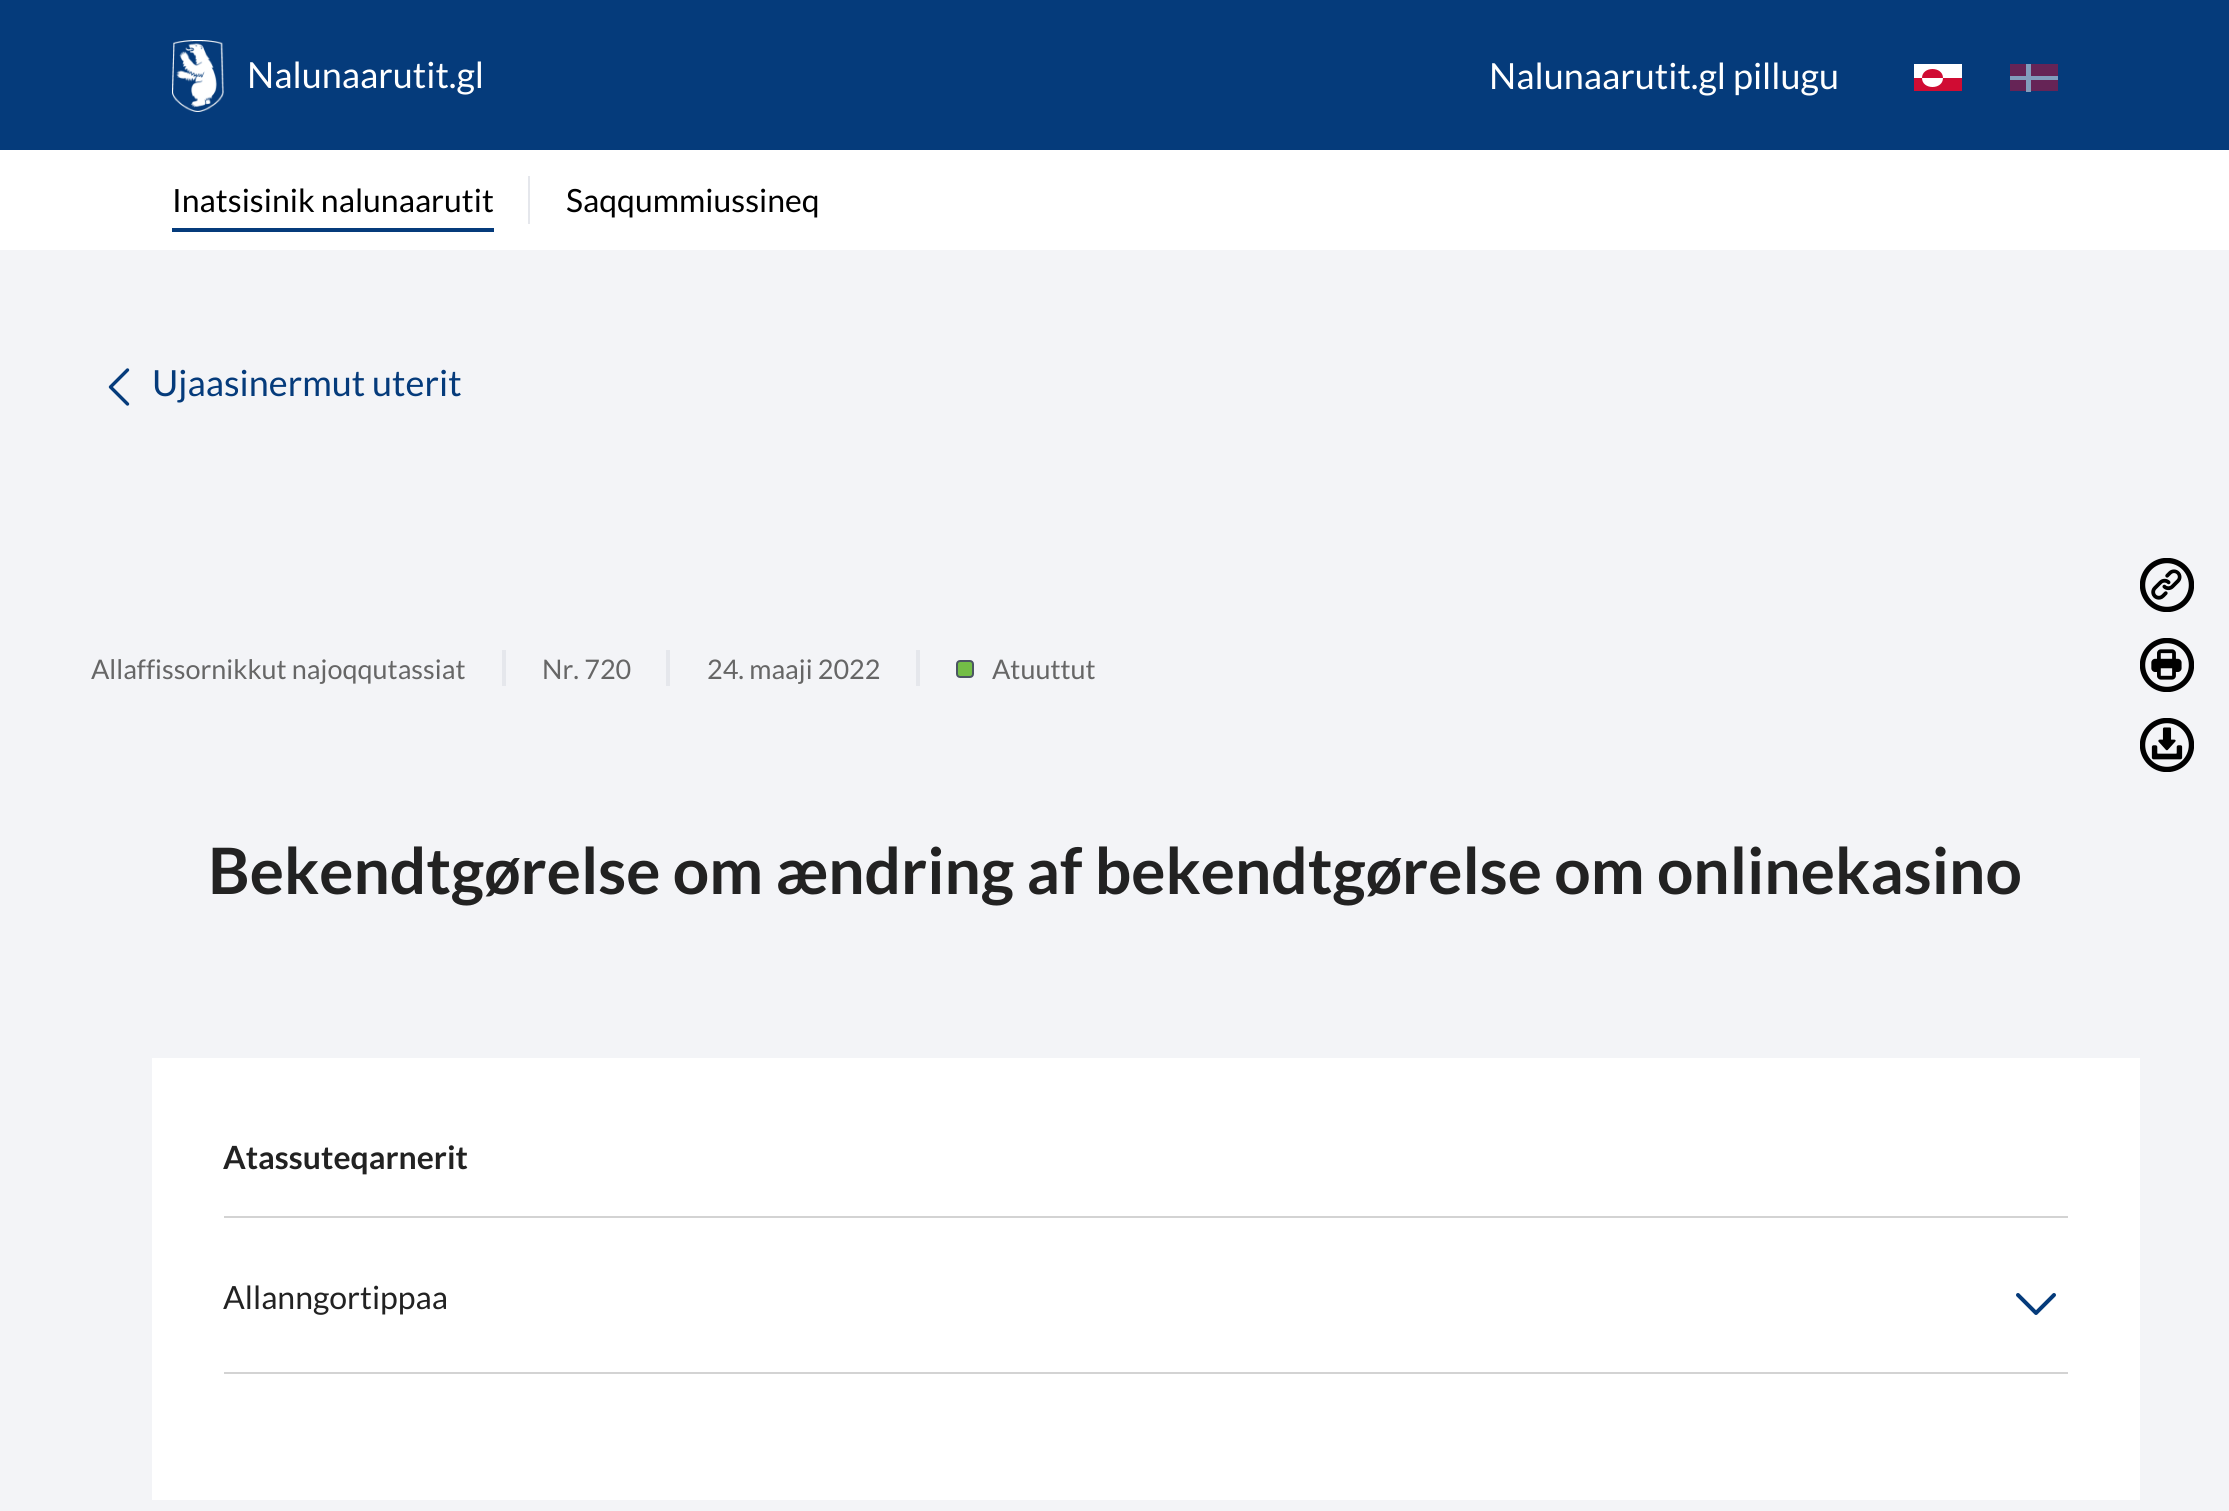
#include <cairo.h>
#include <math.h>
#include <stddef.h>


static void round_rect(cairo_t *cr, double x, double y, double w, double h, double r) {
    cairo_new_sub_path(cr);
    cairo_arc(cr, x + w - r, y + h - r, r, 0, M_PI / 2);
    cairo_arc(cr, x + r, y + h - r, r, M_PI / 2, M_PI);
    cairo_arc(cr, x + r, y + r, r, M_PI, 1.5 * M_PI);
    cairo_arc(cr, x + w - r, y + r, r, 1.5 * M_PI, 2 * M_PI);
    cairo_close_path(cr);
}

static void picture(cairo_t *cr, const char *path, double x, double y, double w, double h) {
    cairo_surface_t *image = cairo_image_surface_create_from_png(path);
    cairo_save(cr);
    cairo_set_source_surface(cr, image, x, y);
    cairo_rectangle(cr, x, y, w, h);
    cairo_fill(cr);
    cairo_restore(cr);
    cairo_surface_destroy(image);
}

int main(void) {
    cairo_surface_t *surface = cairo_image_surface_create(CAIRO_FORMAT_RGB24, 2229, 1511);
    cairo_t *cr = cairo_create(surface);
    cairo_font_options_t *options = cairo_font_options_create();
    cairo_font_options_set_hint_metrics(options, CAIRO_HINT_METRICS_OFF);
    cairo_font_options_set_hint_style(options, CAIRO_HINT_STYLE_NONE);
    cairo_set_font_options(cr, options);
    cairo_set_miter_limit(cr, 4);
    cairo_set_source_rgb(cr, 0.02, 0.231, 0.482);
    cairo_paint(cr);
    picture(cr, "img1.png", 172, 40, 52, 72);
    cairo_select_font_face(cr, "Lato", CAIRO_FONT_SLANT_NORMAL, CAIRO_FONT_WEIGHT_NORMAL);
    cairo_set_font_size(cr, 36);
    cairo_set_source_rgb(cr, 1, 1, 1);
    cairo_move_to(cr, 247, 88);
    cairo_show_text(cr, "Nalunaarutit.gl");
    cairo_move_to(cr, 1489, 89);
    cairo_show_text(cr, "Nalunaarutit.gl pillugu");
    cairo_rectangle(cr, 1914, 64, 48, 23);
    cairo_fill(cr);
    cairo_set_source_rgb(cr, 0.816, 0.047, 0.2);
    cairo_new_path(cr);
    cairo_move_to(cr, 1914, 78);
    cairo_line_to(cr, 1962, 78);
    cairo_line_to(cr, 1962, 91);
    cairo_line_to(cr, 1914, 91);
    cairo_close_path(cr);
    cairo_move_to(cr, 1922, 78);
    cairo_curve_to(cr, 1922, 90, 1943, 90, 1943, 78);
    cairo_curve_to(cr, 1943, 66, 1922, 66, 1922, 78);
    cairo_fill(cr);
    cairo_set_source_rgb(cr, 0.4, 0.141, 0.337);
    cairo_rectangle(cr, 2010, 64, 48, 27);
    cairo_fill(cr);
    cairo_set_source_rgb(cr, 0.51, 0.616, 0.741);
    cairo_rectangle(cr, 2026, 64, 5, 28);
    cairo_fill(cr);
    cairo_rectangle(cr, 2010, 76, 48, 4);
    cairo_fill(cr);
    cairo_set_source_rgb(cr, 1, 1, 1);
    cairo_rectangle(cr, 0, 150, 2229, 100);
    cairo_fill(cr);
    cairo_set_font_size(cr, 32);
    cairo_set_source_rgb(cr, 0, 0, 0);
    cairo_move_to(cr, 172, 212);
    cairo_show_text(cr, "Inatsisinik nalunaarutit");
    cairo_set_source_rgb(cr, 0.02, 0.231, 0.482);
    cairo_rectangle(cr, 172, 228, 322, 4);
    cairo_fill(cr);
    cairo_set_source_rgb(cr, 0.898, 0.906, 0.922);
    cairo_rectangle(cr, 528, 176, 2, 48);
    cairo_fill(cr);
    cairo_set_source_rgb(cr, 0, 0, 0);
    cairo_move_to(cr, 566, 212);
    cairo_show_text(cr, "Saqqummiussineq");
    cairo_set_source_rgb(cr, 0.953, 0.957, 0.965);
    cairo_rectangle(cr, 0, 250, 2229, 1261);
    cairo_fill(cr);
    cairo_new_path(cr);
    cairo_move_to(cr, 127.5, 404);
    cairo_line_to(cr, 110.5, 387);
    cairo_line_to(cr, 127.5, 370);
    cairo_set_source_rgb(cr, 0.02, 0.231, 0.482);
    cairo_set_line_width(cr, 3.4);
    cairo_set_line_cap(cr, CAIRO_LINE_CAP_ROUND);
    cairo_set_line_join(cr, CAIRO_LINE_JOIN_ROUND);
    cairo_stroke(cr);
    cairo_set_font_size(cr, 36);
    cairo_move_to(cr, 152, 396);
    cairo_show_text(cr, "Ujaasinermut uterit");
    cairo_set_font_size(cr, 27);
    cairo_set_source_rgb(cr, 0.4, 0.4, 0.4);
    cairo_move_to(cr, 91, 679);
    cairo_show_text(cr, "Allaffissornikkut najoqqutassiat");
    cairo_set_source_rgb(cr, 0.898, 0.906, 0.922);
    cairo_rectangle(cr, 502, 650, 4, 36);
    cairo_fill(cr);
    cairo_set_source_rgb(cr, 0.4, 0.4, 0.4);
    cairo_move_to(cr, 542, 679);
    cairo_show_text(cr, "Nr. 720");
    cairo_set_source_rgb(cr, 0.898, 0.906, 0.922);
    cairo_rectangle(cr, 666, 650, 4, 36);
    cairo_fill(cr);
    cairo_set_source_rgb(cr, 0.4, 0.4, 0.4);
    cairo_move_to(cr, 707, 679);
    cairo_show_text(cr, "24. maaji 2022");
    cairo_set_source_rgb(cr, 0.898, 0.906, 0.922);
    cairo_rectangle(cr, 916, 650, 4, 36);
    cairo_fill(cr);
    cairo_set_source_rgb(cr, 0.451, 0.745, 0.275);
    round_rect(cr, 957, 661, 16, 16, 3);
    cairo_fill_preserve(cr);
    cairo_set_source_rgb(cr, 0.294, 0.333, 0.388);
    cairo_set_line_width(cr, 2);
    cairo_set_line_cap(cr, CAIRO_LINE_CAP_BUTT);
    cairo_set_line_join(cr, CAIRO_LINE_JOIN_MITER);
    cairo_stroke(cr);
    cairo_set_source_rgb(cr, 0.4, 0.4, 0.4);
    cairo_move_to(cr, 992, 679);
    cairo_show_text(cr, "Atuuttut");
    picture(cr, "img2.png", 2140, 558, 54, 54);
    picture(cr, "img3.png", 2140, 638, 54, 54);
    picture(cr, "img4.png", 2140, 718, 54, 54);
    cairo_select_font_face(cr, "Lato", CAIRO_FONT_SLANT_NORMAL, CAIRO_FONT_WEIGHT_BOLD);
    cairo_set_font_size(cr, 64);
    cairo_set_source_rgb(cr, 0.133, 0.133, 0.133);
    cairo_move_to(cr, 208, 894);
    cairo_show_text(cr, "Bekendtgørelse om ændring af bekendtgørelse om onlinekasino");
    cairo_set_source_rgb(cr, 1, 1, 1);
    cairo_rectangle(cr, 152, 1058, 1988, 442);
    cairo_fill(cr);
    cairo_set_font_size(cr, 32);
    cairo_set_source_rgb(cr, 0.133, 0.133, 0.133);
    cairo_move_to(cr, 223, 1169);
    cairo_show_text(cr, "Atassuteqarnerit");
    cairo_set_source_rgb(cr, 0.827, 0.827, 0.827);
    cairo_rectangle(cr, 224, 1216, 1844, 2);
    cairo_fill(cr);
    cairo_select_font_face(cr, "Lato", CAIRO_FONT_SLANT_NORMAL, CAIRO_FONT_WEIGHT_NORMAL);
    cairo_set_source_rgb(cr, 0.133, 0.133, 0.133);
    cairo_move_to(cr, 223, 1309);
    cairo_show_text(cr, "Allanngortippaa");
    cairo_new_path(cr);
    cairo_move_to(cr, 2036, 1313);
    cairo_line_to(cr, 2018, 1295);
    cairo_move_to(cr, 2054, 1295);
    cairo_line_to(cr, 2036, 1313);
    cairo_set_source_rgb(cr, 0.02, 0.231, 0.482);
    cairo_set_line_width(cr, 4);
    cairo_set_line_cap(cr, CAIRO_LINE_CAP_ROUND);
    cairo_set_line_join(cr, CAIRO_LINE_JOIN_ROUND);
    cairo_stroke(cr);
    cairo_set_source_rgb(cr, 0.827, 0.827, 0.827);
    cairo_rectangle(cr, 224, 1372, 1844, 2);
    cairo_fill(cr);
    cairo_surface_write_to_png(surface, "page.png");
    cairo_font_options_destroy(options);
    cairo_destroy(cr);
    cairo_surface_destroy(surface);
    return 0;
}
